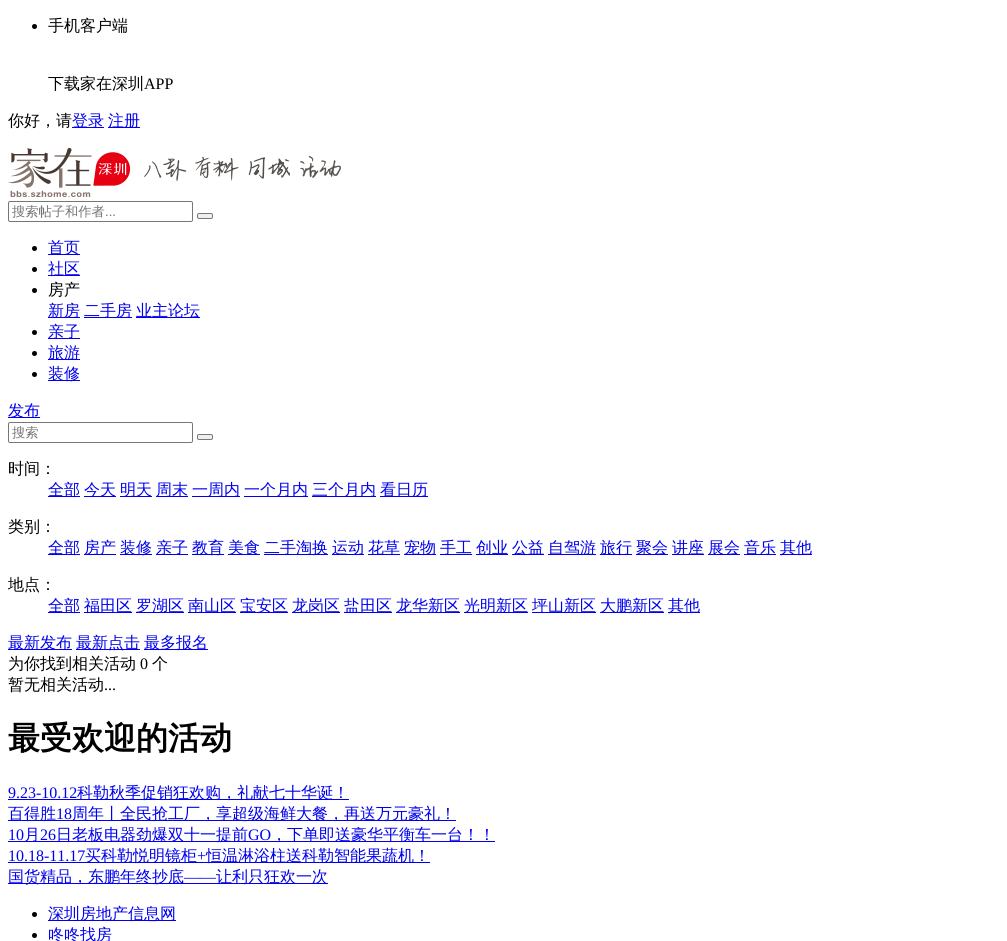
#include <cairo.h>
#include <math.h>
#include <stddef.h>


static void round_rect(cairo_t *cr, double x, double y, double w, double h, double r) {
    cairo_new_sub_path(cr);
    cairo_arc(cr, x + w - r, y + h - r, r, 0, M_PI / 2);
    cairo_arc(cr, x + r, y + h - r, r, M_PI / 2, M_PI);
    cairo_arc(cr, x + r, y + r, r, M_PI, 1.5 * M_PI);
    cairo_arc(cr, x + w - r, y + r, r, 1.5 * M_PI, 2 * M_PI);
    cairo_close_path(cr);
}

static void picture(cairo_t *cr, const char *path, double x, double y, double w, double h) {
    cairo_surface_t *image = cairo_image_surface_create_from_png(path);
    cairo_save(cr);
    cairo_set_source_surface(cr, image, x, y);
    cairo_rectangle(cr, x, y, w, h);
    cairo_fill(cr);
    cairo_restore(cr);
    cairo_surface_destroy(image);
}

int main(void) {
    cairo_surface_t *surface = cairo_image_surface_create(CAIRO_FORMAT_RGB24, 1007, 941);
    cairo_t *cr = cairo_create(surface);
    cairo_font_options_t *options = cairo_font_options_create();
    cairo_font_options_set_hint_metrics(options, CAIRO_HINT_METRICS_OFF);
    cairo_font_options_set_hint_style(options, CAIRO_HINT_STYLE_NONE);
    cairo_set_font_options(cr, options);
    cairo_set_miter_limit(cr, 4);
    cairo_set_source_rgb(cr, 1, 1, 1);
    cairo_paint(cr);
    cairo_set_source_rgb(cr, 0, 0, 0);
    cairo_arc(cr, 34.5, 26.5, 2.5, 0, 2 * M_PI);
    cairo_fill(cr);
    cairo_select_font_face(cr, "WenQuanYi Zen Hei Medium", CAIRO_FONT_SLANT_NORMAL, CAIRO_FONT_WEIGHT_NORMAL);
    cairo_set_font_size(cr, 16);
    cairo_move_to(cr, 48, 31);
    cairo_show_text(cr, "手机客户端");
    cairo_move_to(cr, 48, 89);
    cairo_show_text(cr, "下载家在深圳");
    cairo_select_font_face(cr, "Liberation Serif", CAIRO_FONT_SLANT_NORMAL, CAIRO_FONT_WEIGHT_NORMAL);
    cairo_move_to(cr, 144, 89);
    cairo_show_text(cr, "APP");
    cairo_select_font_face(cr, "WenQuanYi Zen Hei Medium", CAIRO_FONT_SLANT_NORMAL, CAIRO_FONT_WEIGHT_NORMAL);
    cairo_move_to(cr, 8, 126);
    cairo_show_text(cr, "你好，请");
    cairo_set_source_rgb(cr, 0, 0, 0.933);
    cairo_rectangle(cr, 72, 127, 32, 1);
    cairo_fill(cr);
    cairo_move_to(cr, 72, 126);
    cairo_show_text(cr, "登录");
    cairo_rectangle(cr, 108, 127, 32, 1);
    cairo_fill(cr);
    cairo_move_to(cr, 108, 126);
    cairo_show_text(cr, "注册");
    picture(cr, "img1.png", 8, 148, 333, 49);
    round_rect(cr, 8.5, 201.5, 184, 20, 1.5);
    cairo_set_source_rgb(cr, 0.463, 0.463, 0.463);
    cairo_set_line_width(cr, 1);
    cairo_stroke(cr);
    cairo_set_font_size(cr, 13.25);
    cairo_set_source_rgb(cr, 0.459, 0.459, 0.459);
    cairo_move_to(cr, 12, 216);
    cairo_show_text(cr, "搜索帖子和作者");
    cairo_select_font_face(cr, "Liberation Sans", CAIRO_FONT_SLANT_NORMAL, CAIRO_FONT_WEIGHT_NORMAL);
    cairo_move_to(cr, 105, 216);
    cairo_show_text(cr, "...");
    cairo_set_source_rgb(cr, 0.937, 0.937, 0.937);
    round_rect(cr, 197.5, 213.5, 15, 5, 1.5);
    cairo_fill_preserve(cr);
    cairo_set_source_rgb(cr, 0.463, 0.463, 0.463);
    cairo_stroke(cr);
    cairo_set_source_rgb(cr, 0, 0, 0);
    cairo_arc(cr, 34.5, 248.5, 2.5, 0, 2 * M_PI);
    cairo_fill(cr);
    cairo_set_source_rgb(cr, 0, 0, 0.933);
    cairo_rectangle(cr, 48, 254, 32, 1);
    cairo_fill(cr);
    cairo_select_font_face(cr, "WenQuanYi Zen Hei Medium", CAIRO_FONT_SLANT_NORMAL, CAIRO_FONT_WEIGHT_NORMAL);
    cairo_set_font_size(cr, 16);
    cairo_move_to(cr, 48, 253);
    cairo_show_text(cr, "首页");
    cairo_set_source_rgb(cr, 0, 0, 0);
    cairo_new_path(cr);
    cairo_arc(cr, 34.5, 269.5, 2.5, 0, 2 * M_PI);
    cairo_fill(cr);
    cairo_set_source_rgb(cr, 0, 0, 0.933);
    cairo_rectangle(cr, 48, 275, 32, 1);
    cairo_fill(cr);
    cairo_move_to(cr, 48, 274);
    cairo_show_text(cr, "社区");
    cairo_set_source_rgb(cr, 0, 0, 0);
    cairo_new_path(cr);
    cairo_arc(cr, 34.5, 290.5, 2.5, 0, 2 * M_PI);
    cairo_fill(cr);
    cairo_move_to(cr, 48, 295);
    cairo_show_text(cr, "房产");
    cairo_set_source_rgb(cr, 0, 0, 0.933);
    cairo_rectangle(cr, 48, 317, 32, 1);
    cairo_fill(cr);
    cairo_move_to(cr, 48, 316);
    cairo_show_text(cr, "新房");
    cairo_rectangle(cr, 84, 317, 48, 1);
    cairo_fill(cr);
    cairo_move_to(cr, 84, 316);
    cairo_show_text(cr, "二手房");
    cairo_rectangle(cr, 136, 317, 64, 1);
    cairo_fill(cr);
    cairo_move_to(cr, 136, 316);
    cairo_show_text(cr, "业主论坛");
    cairo_set_source_rgb(cr, 0, 0, 0);
    cairo_new_path(cr);
    cairo_arc(cr, 34.5, 332.5, 2.5, 0, 2 * M_PI);
    cairo_fill(cr);
    cairo_set_source_rgb(cr, 0, 0, 0.933);
    cairo_rectangle(cr, 48, 338, 32, 1);
    cairo_fill(cr);
    cairo_move_to(cr, 48, 337);
    cairo_show_text(cr, "亲子");
    cairo_set_source_rgb(cr, 0, 0, 0);
    cairo_new_path(cr);
    cairo_arc(cr, 34.5, 353.5, 2.5, 0, 2 * M_PI);
    cairo_fill(cr);
    cairo_set_source_rgb(cr, 0, 0, 0.933);
    cairo_rectangle(cr, 48, 359, 32, 1);
    cairo_fill(cr);
    cairo_move_to(cr, 48, 358);
    cairo_show_text(cr, "旅游");
    cairo_set_source_rgb(cr, 0, 0, 0);
    cairo_new_path(cr);
    cairo_arc(cr, 34.5, 374.5, 2.5, 0, 2 * M_PI);
    cairo_fill(cr);
    cairo_set_source_rgb(cr, 0, 0, 0.933);
    cairo_rectangle(cr, 48, 380, 32, 1);
    cairo_fill(cr);
    cairo_move_to(cr, 48, 379);
    cairo_show_text(cr, "装修");
    cairo_rectangle(cr, 8, 417, 32, 1);
    cairo_fill(cr);
    cairo_move_to(cr, 8, 416);
    cairo_show_text(cr, "发布");
    round_rect(cr, 8.5, 422.5, 184, 20, 1.5);
    cairo_set_source_rgb(cr, 0.463, 0.463, 0.463);
    cairo_stroke(cr);
    cairo_set_font_size(cr, 13.25);
    cairo_set_source_rgb(cr, 0.459, 0.459, 0.459);
    cairo_move_to(cr, 12, 437);
    cairo_show_text(cr, "搜索");
    cairo_set_source_rgb(cr, 0.937, 0.937, 0.937);
    round_rect(cr, 197.5, 434.5, 15, 5, 1.5);
    cairo_fill_preserve(cr);
    cairo_set_source_rgb(cr, 0.463, 0.463, 0.463);
    cairo_stroke(cr);
    cairo_set_font_size(cr, 16);
    cairo_set_source_rgb(cr, 0, 0, 0);
    cairo_move_to(cr, 8, 474);
    cairo_show_text(cr, "时间：");
    cairo_set_source_rgb(cr, 0, 0, 0.933);
    cairo_rectangle(cr, 48, 496, 32, 1);
    cairo_fill(cr);
    cairo_move_to(cr, 48, 495);
    cairo_show_text(cr, "全部");
    cairo_rectangle(cr, 84, 496, 32, 1);
    cairo_fill(cr);
    cairo_move_to(cr, 84, 495);
    cairo_show_text(cr, "今天");
    cairo_rectangle(cr, 120, 496, 32, 1);
    cairo_fill(cr);
    cairo_move_to(cr, 120, 495);
    cairo_show_text(cr, "明天");
    cairo_rectangle(cr, 156, 496, 32, 1);
    cairo_fill(cr);
    cairo_move_to(cr, 156, 495);
    cairo_show_text(cr, "周末");
    cairo_rectangle(cr, 192, 496, 48, 1);
    cairo_fill(cr);
    cairo_move_to(cr, 192, 495);
    cairo_show_text(cr, "一周内");
    cairo_rectangle(cr, 244, 496, 64, 1);
    cairo_fill(cr);
    cairo_move_to(cr, 244, 495);
    cairo_show_text(cr, "一个月内");
    cairo_rectangle(cr, 312, 496, 64, 1);
    cairo_fill(cr);
    cairo_move_to(cr, 312, 495);
    cairo_show_text(cr, "三个月内");
    cairo_rectangle(cr, 380, 496, 48, 1);
    cairo_fill(cr);
    cairo_move_to(cr, 380, 495);
    cairo_show_text(cr, "看日历");
    cairo_set_source_rgb(cr, 0, 0, 0);
    cairo_move_to(cr, 8, 532);
    cairo_show_text(cr, "类别：");
    cairo_set_source_rgb(cr, 0, 0, 0.933);
    cairo_rectangle(cr, 48, 554, 32, 1);
    cairo_fill(cr);
    cairo_move_to(cr, 48, 553);
    cairo_show_text(cr, "全部");
    cairo_rectangle(cr, 84, 554, 32, 1);
    cairo_fill(cr);
    cairo_move_to(cr, 84, 553);
    cairo_show_text(cr, "房产");
    cairo_rectangle(cr, 120, 554, 32, 1);
    cairo_fill(cr);
    cairo_move_to(cr, 120, 553);
    cairo_show_text(cr, "装修");
    cairo_rectangle(cr, 156, 554, 32, 1);
    cairo_fill(cr);
    cairo_move_to(cr, 156, 553);
    cairo_show_text(cr, "亲子");
    cairo_rectangle(cr, 192, 554, 32, 1);
    cairo_fill(cr);
    cairo_move_to(cr, 192, 553);
    cairo_show_text(cr, "教育");
    cairo_rectangle(cr, 228, 554, 32, 1);
    cairo_fill(cr);
    cairo_move_to(cr, 228, 553);
    cairo_show_text(cr, "美食");
    cairo_rectangle(cr, 264, 554, 64, 1);
    cairo_fill(cr);
    cairo_move_to(cr, 264, 553);
    cairo_show_text(cr, "二手淘换");
    cairo_rectangle(cr, 332, 554, 32, 1);
    cairo_fill(cr);
    cairo_move_to(cr, 332, 553);
    cairo_show_text(cr, "运动");
    cairo_rectangle(cr, 368, 554, 32, 1);
    cairo_fill(cr);
    cairo_move_to(cr, 368, 553);
    cairo_show_text(cr, "花草");
    cairo_rectangle(cr, 404, 554, 32, 1);
    cairo_fill(cr);
    cairo_move_to(cr, 404, 553);
    cairo_show_text(cr, "宠物");
    cairo_rectangle(cr, 440, 554, 32, 1);
    cairo_fill(cr);
    cairo_move_to(cr, 440, 553);
    cairo_show_text(cr, "手工");
    cairo_rectangle(cr, 476, 554, 32, 1);
    cairo_fill(cr);
    cairo_move_to(cr, 476, 553);
    cairo_show_text(cr, "创业");
    cairo_rectangle(cr, 512, 554, 32, 1);
    cairo_fill(cr);
    cairo_move_to(cr, 512, 553);
    cairo_show_text(cr, "公益");
    cairo_rectangle(cr, 548, 554, 48, 1);
    cairo_fill(cr);
    cairo_move_to(cr, 548, 553);
    cairo_show_text(cr, "自驾游");
    cairo_rectangle(cr, 600, 554, 32, 1);
    cairo_fill(cr);
    cairo_move_to(cr, 600, 553);
    cairo_show_text(cr, "旅行");
    cairo_rectangle(cr, 636, 554, 32, 1);
    cairo_fill(cr);
    cairo_move_to(cr, 636, 553);
    cairo_show_text(cr, "聚会");
    cairo_rectangle(cr, 672, 554, 32, 1);
    cairo_fill(cr);
    cairo_move_to(cr, 672, 553);
    cairo_show_text(cr, "讲座");
    cairo_rectangle(cr, 708, 554, 32, 1);
    cairo_fill(cr);
    cairo_move_to(cr, 708, 553);
    cairo_show_text(cr, "展会");
    cairo_rectangle(cr, 744, 554, 32, 1);
    cairo_fill(cr);
    cairo_move_to(cr, 744, 553);
    cairo_show_text(cr, "音乐");
    cairo_rectangle(cr, 780, 554, 32, 1);
    cairo_fill(cr);
    cairo_move_to(cr, 780, 553);
    cairo_show_text(cr, "其他");
    cairo_set_source_rgb(cr, 0, 0, 0);
    cairo_move_to(cr, 8, 590);
    cairo_show_text(cr, "地点：");
    cairo_set_source_rgb(cr, 0, 0, 0.933);
    cairo_rectangle(cr, 48, 612, 32, 1);
    cairo_fill(cr);
    cairo_move_to(cr, 48, 611);
    cairo_show_text(cr, "全部");
    cairo_rectangle(cr, 84, 612, 48, 1);
    cairo_fill(cr);
    cairo_move_to(cr, 84, 611);
    cairo_show_text(cr, "福田区");
    cairo_rectangle(cr, 136, 612, 48, 1);
    cairo_fill(cr);
    cairo_move_to(cr, 136, 611);
    cairo_show_text(cr, "罗湖区");
    cairo_rectangle(cr, 188, 612, 48, 1);
    cairo_fill(cr);
    cairo_move_to(cr, 188, 611);
    cairo_show_text(cr, "南山区");
    cairo_rectangle(cr, 240, 612, 48, 1);
    cairo_fill(cr);
    cairo_move_to(cr, 240, 611);
    cairo_show_text(cr, "宝安区");
    cairo_rectangle(cr, 292, 612, 48, 1);
    cairo_fill(cr);
    cairo_move_to(cr, 292, 611);
    cairo_show_text(cr, "龙岗区");
    cairo_rectangle(cr, 344, 612, 48, 1);
    cairo_fill(cr);
    cairo_move_to(cr, 344, 611);
    cairo_show_text(cr, "盐田区");
    cairo_rectangle(cr, 396, 612, 64, 1);
    cairo_fill(cr);
    cairo_move_to(cr, 396, 611);
    cairo_show_text(cr, "龙华新区");
    cairo_rectangle(cr, 464, 612, 64, 1);
    cairo_fill(cr);
    cairo_move_to(cr, 464, 611);
    cairo_show_text(cr, "光明新区");
    cairo_rectangle(cr, 532, 612, 64, 1);
    cairo_fill(cr);
    cairo_move_to(cr, 532, 611);
    cairo_show_text(cr, "坪山新区");
    cairo_rectangle(cr, 600, 612, 64, 1);
    cairo_fill(cr);
    cairo_move_to(cr, 600, 611);
    cairo_show_text(cr, "大鹏新区");
    cairo_rectangle(cr, 668, 612, 32, 1);
    cairo_fill(cr);
    cairo_move_to(cr, 668, 611);
    cairo_show_text(cr, "其他");
    cairo_rectangle(cr, 8, 649, 64, 1);
    cairo_fill(cr);
    cairo_move_to(cr, 8, 648);
    cairo_show_text(cr, "最新发布");
    cairo_rectangle(cr, 76, 649, 64, 1);
    cairo_fill(cr);
    cairo_move_to(cr, 76, 648);
    cairo_show_text(cr, "最新点击");
    cairo_rectangle(cr, 144, 649, 64, 1);
    cairo_fill(cr);
    cairo_move_to(cr, 144, 648);
    cairo_show_text(cr, "最多报名");
    cairo_set_source_rgb(cr, 0, 0, 0);
    cairo_move_to(cr, 8, 669);
    cairo_show_text(cr, "为你找到相关活动");
    cairo_select_font_face(cr, "Liberation Serif", CAIRO_FONT_SLANT_NORMAL, CAIRO_FONT_WEIGHT_NORMAL);
    cairo_move_to(cr, 140, 669);
    cairo_show_text(cr, "0");
    cairo_select_font_face(cr, "WenQuanYi Zen Hei Medium", CAIRO_FONT_SLANT_NORMAL, CAIRO_FONT_WEIGHT_NORMAL);
    cairo_move_to(cr, 152, 669);
    cairo_show_text(cr, "个");
    cairo_move_to(cr, 8, 690);
    cairo_show_text(cr, "暂无相关活动");
    cairo_select_font_face(cr, "Liberation Serif", CAIRO_FONT_SLANT_NORMAL, CAIRO_FONT_WEIGHT_NORMAL);
    cairo_move_to(cr, 104, 690);
    cairo_show_text(cr, "...");
    cairo_select_font_face(cr, "WenQuanYi Zen Hei", CAIRO_FONT_SLANT_NORMAL, CAIRO_FONT_WEIGHT_BOLD);
    cairo_set_font_size(cr, 32);
    cairo_move_to(cr, 8, 749);
    cairo_show_text(cr, "最受欢迎的活动");
    cairo_select_font_face(cr, "Liberation Serif", CAIRO_FONT_SLANT_NORMAL, CAIRO_FONT_WEIGHT_NORMAL);
    cairo_set_font_size(cr, 16);
    cairo_set_source_rgb(cr, 0, 0, 0.933);
    cairo_move_to(cr, 8, 798);
    cairo_show_text(cr, "9.23-10.12");
    cairo_rectangle(cr, 8, 799, 341, 1);
    cairo_fill(cr);
    cairo_select_font_face(cr, "WenQuanYi Zen Hei Medium", CAIRO_FONT_SLANT_NORMAL, CAIRO_FONT_WEIGHT_NORMAL);
    cairo_move_to(cr, 77, 798);
    cairo_show_text(cr, "科勒秋季促销狂欢购，礼献七十华诞！");
    cairo_rectangle(cr, 8, 820, 448, 1);
    cairo_fill(cr);
    cairo_move_to(cr, 8, 819);
    cairo_show_text(cr, "百得胜");
    cairo_select_font_face(cr, "Liberation Serif", CAIRO_FONT_SLANT_NORMAL, CAIRO_FONT_WEIGHT_NORMAL);
    cairo_move_to(cr, 56, 819);
    cairo_show_text(cr, "18");
    cairo_select_font_face(cr, "WenQuanYi Zen Hei Medium", CAIRO_FONT_SLANT_NORMAL, CAIRO_FONT_WEIGHT_NORMAL);
    cairo_move_to(cr, 72, 819);
    cairo_show_text(cr, "周年丨全民抢工厂，享超级海鲜大餐，再送万元豪礼！");
    cairo_select_font_face(cr, "Liberation Serif", CAIRO_FONT_SLANT_NORMAL, CAIRO_FONT_WEIGHT_NORMAL);
    cairo_move_to(cr, 8, 840);
    cairo_show_text(cr, "10");
    cairo_rectangle(cr, 8, 841, 487, 1);
    cairo_fill(cr);
    cairo_select_font_face(cr, "WenQuanYi Zen Hei Medium", CAIRO_FONT_SLANT_NORMAL, CAIRO_FONT_WEIGHT_NORMAL);
    cairo_move_to(cr, 24, 840);
    cairo_show_text(cr, "月");
    cairo_select_font_face(cr, "Liberation Serif", CAIRO_FONT_SLANT_NORMAL, CAIRO_FONT_WEIGHT_NORMAL);
    cairo_move_to(cr, 40, 840);
    cairo_show_text(cr, "26");
    cairo_select_font_face(cr, "WenQuanYi Zen Hei Medium", CAIRO_FONT_SLANT_NORMAL, CAIRO_FONT_WEIGHT_NORMAL);
    cairo_move_to(cr, 56, 840);
    cairo_show_text(cr, "日老板电器劲爆双十一提前");
    cairo_select_font_face(cr, "Liberation Serif", CAIRO_FONT_SLANT_NORMAL, CAIRO_FONT_WEIGHT_NORMAL);
    cairo_move_to(cr, 248, 840);
    cairo_show_text(cr, "GO");
    cairo_select_font_face(cr, "WenQuanYi Zen Hei Medium", CAIRO_FONT_SLANT_NORMAL, CAIRO_FONT_WEIGHT_NORMAL);
    cairo_move_to(cr, 271, 840);
    cairo_show_text(cr, "，下单即送豪华平衡车一台！！");
    cairo_select_font_face(cr, "Liberation Serif", CAIRO_FONT_SLANT_NORMAL, CAIRO_FONT_WEIGHT_NORMAL);
    cairo_move_to(cr, 8, 861);
    cairo_show_text(cr, "10.18-11.17");
    cairo_rectangle(cr, 8, 862, 422, 1);
    cairo_fill(cr);
    cairo_select_font_face(cr, "WenQuanYi Zen Hei Medium", CAIRO_FONT_SLANT_NORMAL, CAIRO_FONT_WEIGHT_NORMAL);
    cairo_move_to(cr, 85, 861);
    cairo_show_text(cr, "买科勒悦明镜柜");
    cairo_select_font_face(cr, "Liberation Serif", CAIRO_FONT_SLANT_NORMAL, CAIRO_FONT_WEIGHT_NORMAL);
    cairo_move_to(cr, 197, 861);
    cairo_show_text(cr, "+");
    cairo_select_font_face(cr, "WenQuanYi Zen Hei Medium", CAIRO_FONT_SLANT_NORMAL, CAIRO_FONT_WEIGHT_NORMAL);
    cairo_move_to(cr, 206, 861);
    cairo_show_text(cr, "恒温淋浴柱送科勒智能果蔬机！");
    cairo_rectangle(cr, 8, 883, 320, 1);
    cairo_fill(cr);
    cairo_move_to(cr, 8, 882);
    cairo_show_text(cr, "国货精品，东鹏年终抄底");
    cairo_select_font_face(cr, "Liberation Serif", CAIRO_FONT_SLANT_NORMAL, CAIRO_FONT_WEIGHT_NORMAL);
    cairo_move_to(cr, 184, 882);
    cairo_show_text(cr, "——");
    cairo_select_font_face(cr, "WenQuanYi Zen Hei Medium", CAIRO_FONT_SLANT_NORMAL, CAIRO_FONT_WEIGHT_NORMAL);
    cairo_move_to(cr, 216, 882);
    cairo_show_text(cr, "让利只狂欢一次");
    cairo_set_source_rgb(cr, 0, 0, 0);
    cairo_new_path(cr);
    cairo_arc(cr, 34.5, 914.5, 2.5, 0, 2 * M_PI);
    cairo_fill(cr);
    cairo_set_source_rgb(cr, 0, 0, 0.933);
    cairo_rectangle(cr, 48, 920, 128, 1);
    cairo_fill(cr);
    cairo_move_to(cr, 48, 919);
    cairo_show_text(cr, "深圳房地产信息网");
    cairo_set_source_rgb(cr, 0, 0, 0);
    cairo_new_path(cr);
    cairo_arc(cr, 34.5, 935.5, 2.5, 0, 2 * M_PI);
    cairo_fill(cr);
    cairo_set_source_rgb(cr, 0, 0, 0.933);
    cairo_move_to(cr, 48, 940);
    cairo_show_text(cr, "咚咚找房");
    cairo_surface_write_to_png(surface, "page.png");
    cairo_font_options_destroy(options);
    cairo_destroy(cr);
    cairo_surface_destroy(surface);
    return 0;
}
